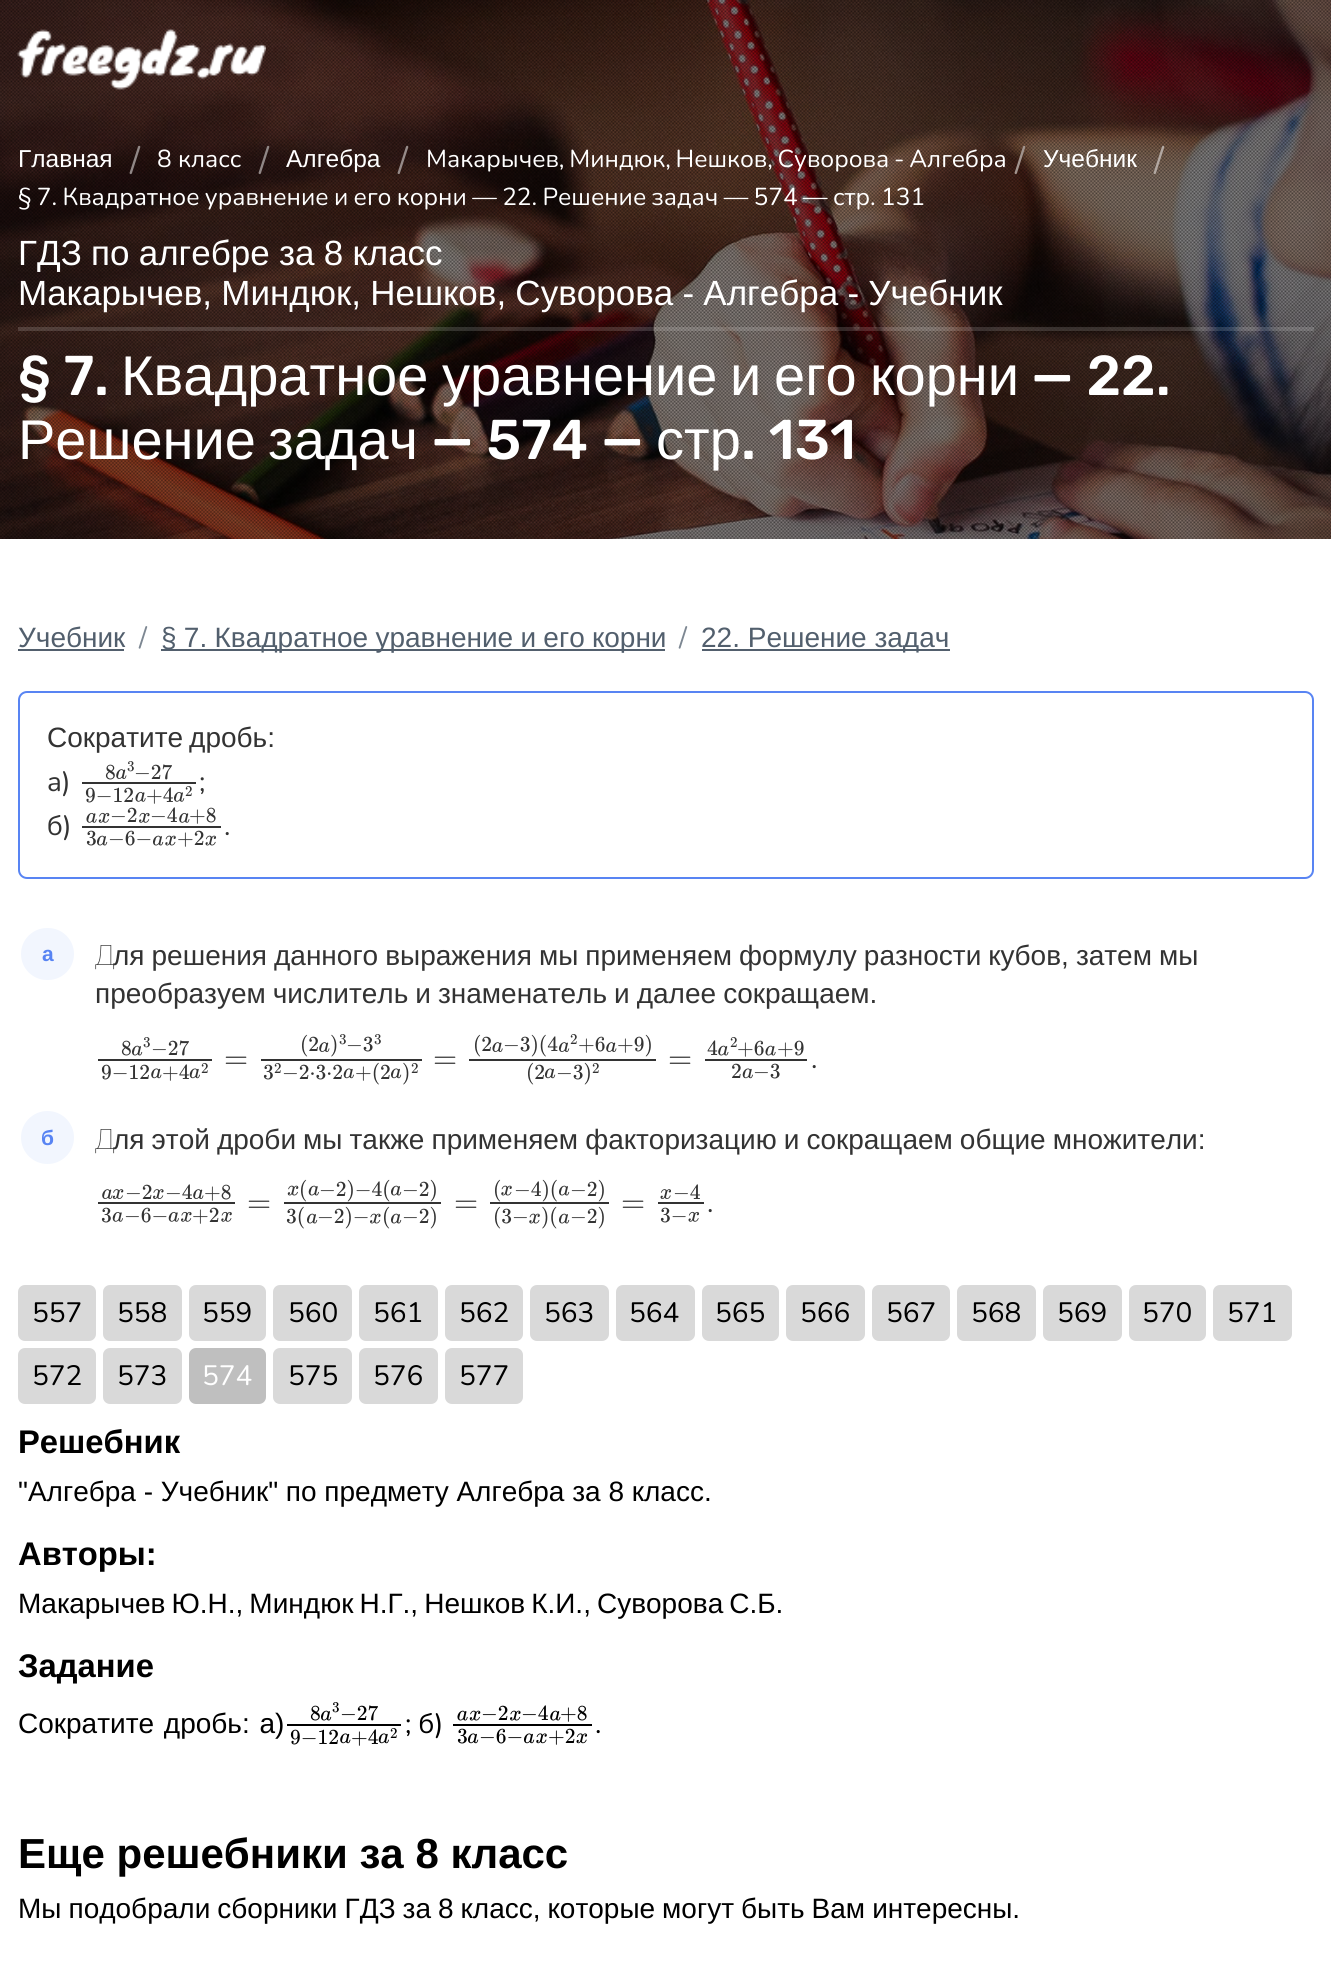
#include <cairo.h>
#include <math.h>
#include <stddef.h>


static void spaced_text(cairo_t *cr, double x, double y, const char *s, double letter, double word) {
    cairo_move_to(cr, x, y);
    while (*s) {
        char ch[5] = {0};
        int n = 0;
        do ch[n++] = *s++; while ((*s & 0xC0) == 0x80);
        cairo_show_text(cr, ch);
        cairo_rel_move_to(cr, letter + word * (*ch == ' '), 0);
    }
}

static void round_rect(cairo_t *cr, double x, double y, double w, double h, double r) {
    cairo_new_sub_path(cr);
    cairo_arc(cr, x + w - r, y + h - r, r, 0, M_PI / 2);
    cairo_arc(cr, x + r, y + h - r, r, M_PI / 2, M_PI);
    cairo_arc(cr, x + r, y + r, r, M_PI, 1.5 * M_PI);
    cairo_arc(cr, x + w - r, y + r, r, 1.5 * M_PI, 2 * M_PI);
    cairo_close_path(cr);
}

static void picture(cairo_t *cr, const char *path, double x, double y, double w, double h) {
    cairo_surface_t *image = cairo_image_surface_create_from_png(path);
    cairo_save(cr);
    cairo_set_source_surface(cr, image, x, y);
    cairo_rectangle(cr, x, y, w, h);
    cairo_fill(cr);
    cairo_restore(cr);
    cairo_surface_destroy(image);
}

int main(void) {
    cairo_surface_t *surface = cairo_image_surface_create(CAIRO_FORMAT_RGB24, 1331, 1973);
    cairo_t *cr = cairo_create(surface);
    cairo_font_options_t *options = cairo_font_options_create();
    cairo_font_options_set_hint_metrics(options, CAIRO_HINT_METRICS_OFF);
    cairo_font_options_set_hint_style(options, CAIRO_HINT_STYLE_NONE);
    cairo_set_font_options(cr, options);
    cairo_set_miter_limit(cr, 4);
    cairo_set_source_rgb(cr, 1, 1, 1);
    cairo_paint(cr);
    picture(cr, "img1.png", 0, 0, 1331, 539);
    picture(cr, "img2.png", 0, 0, 1331, 539);
    picture(cr, "img3.png", 17, 29, 249, 61);
    cairo_select_font_face(cr, "Liberation Sans", CAIRO_FONT_SLANT_NORMAL, CAIRO_FONT_WEIGHT_NORMAL);
    cairo_set_font_size(cr, 24.5);
    cairo_set_source_rgb(cr, 1, 1, 1);
    cairo_move_to(cr, 18, 167);
    cairo_show_text(cr, "Главная");
    cairo_select_font_face(cr, "Nunito", CAIRO_FONT_SLANT_NORMAL, CAIRO_FONT_WEIGHT_NORMAL);
    cairo_set_font_size(cr, 35);
    cairo_set_source_rgb(cr, 0.565, 0.529, 0.525);
    cairo_move_to(cr, 130, 172);
    cairo_show_text(cr, "/");
    cairo_set_font_size(cr, 24.5);
    cairo_set_source_rgb(cr, 1, 1, 1);
    cairo_move_to(cr, 157, 167);
    cairo_show_text(cr, "8 класс");
    cairo_set_font_size(cr, 35);
    cairo_set_source_rgb(cr, 0.565, 0.529, 0.525);
    cairo_move_to(cr, 259, 172);
    cairo_show_text(cr, "/");
    cairo_select_font_face(cr, "Liberation Sans", CAIRO_FONT_SLANT_NORMAL, CAIRO_FONT_WEIGHT_NORMAL);
    cairo_set_font_size(cr, 24.5);
    cairo_set_source_rgb(cr, 1, 1, 1);
    cairo_move_to(cr, 286, 167);
    cairo_show_text(cr, "Алгебра");
    cairo_select_font_face(cr, "Nunito", CAIRO_FONT_SLANT_NORMAL, CAIRO_FONT_WEIGHT_NORMAL);
    cairo_set_font_size(cr, 35);
    cairo_set_source_rgb(cr, 0.588, 0.545, 0.537);
    cairo_move_to(cr, 398, 172);
    cairo_show_text(cr, "/");
    cairo_set_font_size(cr, 24.5);
    cairo_set_source_rgb(cr, 1, 1, 1);
    spaced_text(cr, 426, 167, "Макарычев, Миндюк, Нешков, Суворова - Алгебра", 0, -1.5);
    cairo_set_font_size(cr, 35);
    cairo_set_source_rgb(cr, 0.631, 0.58, 0.557);
    cairo_move_to(cr, 1015, 172);
    cairo_show_text(cr, "/");
    cairo_select_font_face(cr, "Liberation Sans", CAIRO_FONT_SLANT_NORMAL, CAIRO_FONT_WEIGHT_NORMAL);
    cairo_set_font_size(cr, 24.5);
    cairo_set_source_rgb(cr, 1, 1, 1);
    cairo_move_to(cr, 1043, 167);
    cairo_show_text(cr, "Учебник");
    cairo_select_font_face(cr, "Nunito", CAIRO_FONT_SLANT_NORMAL, CAIRO_FONT_WEIGHT_NORMAL);
    cairo_set_font_size(cr, 35);
    cairo_set_source_rgb(cr, 0.698, 0.659, 0.635);
    cairo_move_to(cr, 1154, 172);
    cairo_show_text(cr, "/");
    cairo_set_font_size(cr, 24.5);
    cairo_set_source_rgb(cr, 1, 1, 1);
    spaced_text(cr, 18, 205, "§ 7. Квадратное уравнение и его корни — 22. Решение задач — 574 — стр. 131", 0, -0.9);
    cairo_set_source_rgba(cr, 1, 1, 1, 0.15);
    cairo_rectangle(cr, 18, 327, 1296, 4);
    cairo_fill(cr);
    cairo_select_font_face(cr, "Liberation Sans", CAIRO_FONT_SLANT_NORMAL, CAIRO_FONT_WEIGHT_NORMAL);
    cairo_set_font_size(cr, 35);
    cairo_set_source_rgb(cr, 1, 1, 1);
    spaced_text(cr, 18, 265, "ГДЗ по алгебре за 8 класс", 0, -0.5);
    spaced_text(cr, 18, 305, "Макарычев, Миндюк, Нешков, Суворова - Алгебра - Учебник", 0, -0.5);
    cairo_select_font_face(cr, "Rubik Medium", CAIRO_FONT_SLANT_NORMAL, CAIRO_FONT_WEIGHT_NORMAL);
    cairo_set_font_size(cr, 56);
    cairo_move_to(cr, 18, 395);
    cairo_show_text(cr, "§ 7.");
    cairo_select_font_face(cr, "Liberation Sans", CAIRO_FONT_SLANT_NORMAL, CAIRO_FONT_WEIGHT_NORMAL);
    cairo_move_to(cr, 121, 395);
    cairo_show_text(cr, "Квадратное");
    cairo_move_to(cr, 442, 395);
    cairo_show_text(cr, "уравнение");
    cairo_move_to(cr, 730, 395);
    cairo_show_text(cr, "и");
    cairo_move_to(cr, 774, 395);
    cairo_show_text(cr, "его");
    cairo_move_to(cr, 870, 395);
    cairo_show_text(cr, "корни");
    cairo_select_font_face(cr, "Rubik Medium", CAIRO_FONT_SLANT_NORMAL, CAIRO_FONT_WEIGHT_NORMAL);
    cairo_move_to(cr, 1031, 395);
    cairo_show_text(cr, "— 22.");
    cairo_select_font_face(cr, "Liberation Sans", CAIRO_FONT_SLANT_NORMAL, CAIRO_FONT_WEIGHT_NORMAL);
    cairo_move_to(cr, 18, 459);
    cairo_show_text(cr, "Решение");
    cairo_move_to(cr, 268, 459);
    cairo_show_text(cr, "задач");
    cairo_select_font_face(cr, "Rubik Medium", CAIRO_FONT_SLANT_NORMAL, CAIRO_FONT_WEIGHT_NORMAL);
    cairo_move_to(cr, 431, 459);
    cairo_show_text(cr, "— 574 —");
    cairo_select_font_face(cr, "Liberation Sans", CAIRO_FONT_SLANT_NORMAL, CAIRO_FONT_WEIGHT_NORMAL);
    cairo_move_to(cr, 656, 459);
    cairo_show_text(cr, "стр");
    cairo_select_font_face(cr, "Rubik Medium", CAIRO_FONT_SLANT_NORMAL, CAIRO_FONT_WEIGHT_NORMAL);
    cairo_move_to(cr, 741, 459);
    cairo_show_text(cr, ". 131");
    cairo_select_font_face(cr, "Liberation Sans", CAIRO_FONT_SLANT_NORMAL, CAIRO_FONT_WEIGHT_NORMAL);
    cairo_set_font_size(cr, 28);
    cairo_set_source_rgb(cr, 0.322, 0.373, 0.427);
    cairo_move_to(cr, 18, 647);
    cairo_show_text(cr, "Учебник");
    cairo_rectangle(cr, 18, 649, 106, 2);
    cairo_fill(cr);
    cairo_select_font_face(cr, "Nunito", CAIRO_FONT_SLANT_NORMAL, CAIRO_FONT_WEIGHT_NORMAL);
    cairo_set_source_rgb(cr, 0.49, 0.529, 0.573);
    cairo_move_to(cr, 139, 647);
    cairo_show_text(cr, "/");
    cairo_set_source_rgb(cr, 0.322, 0.373, 0.427);
    cairo_rectangle(cr, 161, 649, 504, 2);
    cairo_fill(cr);
    cairo_select_font_face(cr, "Liberation Sans", CAIRO_FONT_SLANT_NORMAL, CAIRO_FONT_WEIGHT_NORMAL);
    spaced_text(cr, 161, 647, "§ 7. Квадратное уравнение и его корни", 0, -0.5);
    cairo_select_font_face(cr, "Nunito", CAIRO_FONT_SLANT_NORMAL, CAIRO_FONT_WEIGHT_NORMAL);
    cairo_set_source_rgb(cr, 0.49, 0.529, 0.573);
    cairo_move_to(cr, 679, 647);
    cairo_show_text(cr, "/");
    cairo_set_source_rgb(cr, 0.322, 0.373, 0.427);
    cairo_rectangle(cr, 702, 649, 248, 2);
    cairo_fill(cr);
    cairo_select_font_face(cr, "Liberation Sans", CAIRO_FONT_SLANT_NORMAL, CAIRO_FONT_WEIGHT_NORMAL);
    cairo_move_to(cr, 701, 647);
    cairo_show_text(cr, "22. Решение задач");
    round_rect(cr, 19, 692, 1294, 186, 8);
    cairo_set_source_rgb(cr, 0.345, 0.518, 0.953);
    cairo_stroke(cr);
    cairo_set_source_rgb(cr, 0.2, 0.2, 0.2);
    spaced_text(cr, 47, 747, "Сократите дробь:", 0, -1.75);
    cairo_select_font_face(cr, "Nunito", CAIRO_FONT_SLANT_NORMAL, CAIRO_FONT_WEIGHT_NORMAL);
    cairo_move_to(cr, 47, 791);
    cairo_show_text(cr, "a)");
    cairo_select_font_face(cr, "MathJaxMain", CAIRO_FONT_SLANT_NORMAL, CAIRO_FONT_WEIGHT_NORMAL);
    cairo_set_font_size(cr, 21.5);
    cairo_move_to(cr, 105, 779);
    cairo_show_text(cr, "8");
    cairo_set_font_size(cr, 15);
    cairo_move_to(cr, 127, 771);
    cairo_show_text(cr, "3");
    picture(cr, "img4.png", 116, 769, 11, 10);
    cairo_set_font_size(cr, 21.5);
    cairo_move_to(cr, 134, 779);
    cairo_show_text(cr, "−27");
    cairo_rectangle(cr, 82, 782, 114, 2);
    cairo_fill(cr);
    cairo_move_to(cr, 85, 802);
    cairo_show_text(cr, "9−12");
    picture(cr, "img5.png", 135, 791, 11, 11);
    cairo_move_to(cr, 146, 802);
    cairo_show_text(cr, "+4");
    picture(cr, "img6.png", 174, 791, 11, 11);
    cairo_set_font_size(cr, 15);
    cairo_move_to(cr, 185, 796);
    cairo_show_text(cr, "2");
    cairo_select_font_face(cr, "Nunito", CAIRO_FONT_SLANT_NORMAL, CAIRO_FONT_WEIGHT_NORMAL);
    cairo_set_font_size(cr, 28);
    cairo_move_to(cr, 199, 791);
    cairo_show_text(cr, ";");
    cairo_move_to(cr, 47, 835);
    cairo_show_text(cr, "б)");
    picture(cr, "img5.png", 86, 812, 11, 11);
    picture(cr, "img7.png", 98, 812, 12, 11);
    cairo_select_font_face(cr, "MathJaxMain", CAIRO_FONT_SLANT_NORMAL, CAIRO_FONT_WEIGHT_NORMAL);
    cairo_set_font_size(cr, 21.5);
    cairo_move_to(cr, 110, 822);
    cairo_show_text(cr, "−2");
    picture(cr, "img8.png", 139, 812, 11, 11);
    cairo_move_to(cr, 150, 822);
    cairo_show_text(cr, "−4");
    picture(cr, "img9.png", 179, 812, 11, 11);
    cairo_move_to(cr, 189, 822);
    cairo_show_text(cr, "+8");
    cairo_rectangle(cr, 82, 826, 139, 2);
    cairo_fill(cr);
    cairo_move_to(cr, 86, 845);
    cairo_show_text(cr, "3");
    picture(cr, "img10.png", 97, 835, 11, 11);
    cairo_move_to(cr, 108, 845);
    cairo_show_text(cr, "−6−");
    picture(cr, "img10.png", 153, 835, 11, 11);
    picture(cr, "img11.png", 165, 835, 11, 11);
    cairo_move_to(cr, 177, 845);
    cairo_show_text(cr, "+2");
    picture(cr, "img12.png", 205, 835, 12, 11);
    cairo_select_font_face(cr, "Nunito", CAIRO_FONT_SLANT_NORMAL, CAIRO_FONT_WEIGHT_NORMAL);
    cairo_set_font_size(cr, 28);
    cairo_move_to(cr, 224, 835);
    cairo_show_text(cr, ".");
    cairo_set_source_rgb(cr, 0.949, 0.961, 0.996);
    round_rect(cr, 21, 928, 53, 52, 26);
    cairo_fill(cr);
    cairo_select_font_face(cr, "Liberation Sans", CAIRO_FONT_SLANT_NORMAL, CAIRO_FONT_WEIGHT_BOLD);
    cairo_set_font_size(cr, 21);
    cairo_set_source_rgb(cr, 0.345, 0.518, 0.953);
    cairo_move_to(cr, 42, 961);
    cairo_show_text(cr, "а");
    cairo_select_font_face(cr, "Noto Sans Thin", CAIRO_FONT_SLANT_NORMAL, CAIRO_FONT_WEIGHT_NORMAL);
    cairo_set_font_size(cr, 28);
    cairo_set_source_rgb(cr, 0.2, 0.2, 0.2);
    cairo_move_to(cr, 95, 965);
    cairo_show_text(cr, "Д");
    cairo_select_font_face(cr, "Liberation Sans", CAIRO_FONT_SLANT_NORMAL, CAIRO_FONT_WEIGHT_NORMAL);
    spaced_text(cr, 113, 965, "ля решения данного выражения мы применяем формулу разности кубов, затем мы", 0, -0.75);
    spaced_text(cr, 95, 1003, "преобразуем числитель и знаменатель и далее сокращаем.", 0, -0.75);
    cairo_select_font_face(cr, "MathJaxMain", CAIRO_FONT_SLANT_NORMAL, CAIRO_FONT_WEIGHT_NORMAL);
    cairo_set_font_size(cr, 21.5);
    cairo_move_to(cr, 121, 1055);
    cairo_show_text(cr, "8");
    cairo_set_font_size(cr, 15);
    cairo_move_to(cr, 143, 1047);
    cairo_show_text(cr, "3");
    picture(cr, "img10.png", 132, 1045, 11, 11);
    cairo_set_font_size(cr, 21.5);
    cairo_move_to(cr, 151, 1055);
    cairo_show_text(cr, "−27");
    cairo_rectangle(cr, 98, 1059, 114, 2);
    cairo_fill(cr);
    cairo_move_to(cr, 101, 1079);
    cairo_show_text(cr, "9−12");
    picture(cr, "img13.png", 151, 1068, 11, 11);
    cairo_move_to(cr, 162, 1079);
    cairo_show_text(cr, "+4");
    picture(cr, "img14.png", 189, 1068, 11, 11);
    cairo_set_font_size(cr, 15);
    cairo_move_to(cr, 201, 1073);
    cairo_show_text(cr, "2");
    cairo_set_font_size(cr, 31);
    cairo_move_to(cr, 224, 1068);
    cairo_show_text(cr, "=");
    cairo_set_font_size(cr, 21.5);
    cairo_move_to(cr, 300, 1051);
    cairo_show_text(cr, "(2");
    picture(cr, "img4.png", 319, 1042, 11, 10);
    cairo_move_to(cr, 330, 1051);
    cairo_show_text(cr, ")");
    cairo_set_font_size(cr, 15);
    cairo_move_to(cr, 339, 1044);
    cairo_show_text(cr, "3");
    cairo_set_font_size(cr, 21.5);
    cairo_move_to(cr, 346, 1051);
    cairo_show_text(cr, "−3");
    cairo_set_font_size(cr, 15);
    cairo_move_to(cr, 374, 1044);
    cairo_show_text(cr, "3");
    cairo_rectangle(cr, 261, 1059, 161, 2);
    cairo_fill(cr);
    cairo_set_font_size(cr, 21.5);
    cairo_move_to(cr, 263, 1079);
    cairo_show_text(cr, "3");
    cairo_set_font_size(cr, 15);
    cairo_move_to(cr, 274, 1073);
    cairo_show_text(cr, "2");
    cairo_set_font_size(cr, 21.5);
    cairo_move_to(cr, 282, 1079);
    cairo_show_text(cr, "−2⋅3⋅2");
    picture(cr, "img15.png", 343, 1068, 11, 11);
    cairo_move_to(cr, 355, 1079);
    cairo_show_text(cr, "+(2");
    picture(cr, "img16.png", 391, 1068, 11, 11);
    cairo_move_to(cr, 402, 1079);
    cairo_show_text(cr, ")");
    cairo_set_font_size(cr, 15);
    cairo_move_to(cr, 411, 1073);
    cairo_show_text(cr, "2");
    cairo_set_font_size(cr, 31);
    cairo_move_to(cr, 433, 1068);
    cairo_show_text(cr, "=");
    cairo_set_font_size(cr, 21.5);
    cairo_move_to(cr, 473, 1051);
    cairo_show_text(cr, "(2");
    picture(cr, "img17.png", 492, 1042, 11, 10);
    cairo_move_to(cr, 503, 1051);
    cairo_show_text(cr, "−3)(4");
    cairo_set_font_size(cr, 15);
    cairo_move_to(cr, 570, 1044);
    cairo_show_text(cr, "2");
    picture(cr, "img18.png", 559, 1042, 11, 10);
    cairo_set_font_size(cr, 21.5);
    cairo_move_to(cr, 578, 1051);
    cairo_show_text(cr, "+6");
    picture(cr, "img4.png", 606, 1042, 11, 10);
    cairo_move_to(cr, 617, 1051);
    cairo_show_text(cr, "+9)");
    cairo_rectangle(cr, 469, 1059, 187, 2);
    cairo_fill(cr);
    cairo_move_to(cr, 526, 1079);
    cairo_show_text(cr, "(2");
    picture(cr, "img16.png", 545, 1068, 11, 11);
    cairo_move_to(cr, 556, 1079);
    cairo_show_text(cr, "−3)");
    cairo_set_font_size(cr, 15);
    cairo_move_to(cr, 592, 1073);
    cairo_show_text(cr, "2");
    cairo_set_font_size(cr, 31);
    cairo_move_to(cr, 668, 1068);
    cairo_show_text(cr, "=");
    cairo_set_font_size(cr, 21.5);
    cairo_move_to(cr, 707, 1055);
    cairo_show_text(cr, "4");
    cairo_set_font_size(cr, 15);
    cairo_move_to(cr, 730, 1047);
    cairo_show_text(cr, "2");
    picture(cr, "img19.png", 718, 1045, 11, 11);
    cairo_set_font_size(cr, 21.5);
    cairo_move_to(cr, 737, 1055);
    cairo_show_text(cr, "+6");
    picture(cr, "img20.png", 765, 1045, 11, 11);
    cairo_move_to(cr, 777, 1055);
    cairo_show_text(cr, "+9");
    cairo_rectangle(cr, 705, 1059, 102, 2);
    cairo_fill(cr);
    cairo_move_to(cr, 731, 1078);
    cairo_show_text(cr, "2");
    picture(cr, "img15.png", 742, 1068, 11, 11);
    cairo_move_to(cr, 753, 1078);
    cairo_show_text(cr, "−3");
    cairo_select_font_face(cr, "Nunito", CAIRO_FONT_SLANT_NORMAL, CAIRO_FONT_WEIGHT_NORMAL);
    cairo_set_font_size(cr, 28);
    cairo_move_to(cr, 811, 1068);
    cairo_show_text(cr, ".");
    cairo_set_source_rgb(cr, 0.949, 0.961, 0.996);
    cairo_new_path(cr);
    cairo_arc(cr, 47.5, 1137.5, 26.5, 0, 2 * M_PI);
    cairo_fill(cr);
    cairo_select_font_face(cr, "Liberation Sans", CAIRO_FONT_SLANT_NORMAL, CAIRO_FONT_WEIGHT_BOLD);
    cairo_set_font_size(cr, 21);
    cairo_set_source_rgb(cr, 0.345, 0.518, 0.953);
    cairo_move_to(cr, 41, 1145);
    cairo_show_text(cr, "б");
    cairo_select_font_face(cr, "Noto Sans Thin", CAIRO_FONT_SLANT_NORMAL, CAIRO_FONT_WEIGHT_NORMAL);
    cairo_set_font_size(cr, 28);
    cairo_set_source_rgb(cr, 0.2, 0.2, 0.2);
    cairo_move_to(cr, 95, 1149);
    cairo_show_text(cr, "Д");
    cairo_select_font_face(cr, "Liberation Sans", CAIRO_FONT_SLANT_NORMAL, CAIRO_FONT_WEIGHT_NORMAL);
    spaced_text(cr, 113, 1149, "ля этой дроби мы также применяем факторизацию и сокращаем общие множители:", 0, -0.75);
    picture(cr, "img4.png", 102, 1189, 11, 10);
    picture(cr, "img21.png", 112, 1189, 12, 10);
    cairo_select_font_face(cr, "MathJaxMain", CAIRO_FONT_SLANT_NORMAL, CAIRO_FONT_WEIGHT_NORMAL);
    cairo_set_font_size(cr, 21.5);
    cairo_move_to(cr, 125, 1199);
    cairo_show_text(cr, "−2");
    picture(cr, "img22.png", 153, 1189, 11, 10);
    cairo_move_to(cr, 165, 1199);
    cairo_show_text(cr, "−4");
    picture(cr, "img4.png", 193, 1189, 11, 10);
    cairo_move_to(cr, 204, 1199);
    cairo_show_text(cr, "+8");
    cairo_rectangle(cr, 98, 1202, 137, 2);
    cairo_fill(cr);
    cairo_move_to(cr, 101, 1222);
    cairo_show_text(cr, "3");
    picture(cr, "img23.png", 112, 1211, 11, 11);
    cairo_move_to(cr, 124, 1222);
    cairo_show_text(cr, "−6−");
    picture(cr, "img23.png", 168, 1211, 11, 11);
    picture(cr, "img8.png", 181, 1211, 11, 11);
    cairo_move_to(cr, 192, 1222);
    cairo_show_text(cr, "+2");
    picture(cr, "img24.png", 221, 1211, 11, 11);
    cairo_set_font_size(cr, 31);
    cairo_move_to(cr, 247, 1212);
    cairo_show_text(cr, "=");
    picture(cr, "img25.png", 287, 1185, 12, 11);
    cairo_set_font_size(cr, 21.5);
    cairo_move_to(cr, 299, 1196);
    cairo_show_text(cr, "(");
    picture(cr, "img26.png", 308, 1185, 11, 11);
    cairo_move_to(cr, 319, 1196);
    cairo_show_text(cr, "−2)−4(");
    picture(cr, "img10.png", 391, 1185, 11, 11);
    cairo_move_to(cr, 402, 1196);
    cairo_show_text(cr, "−2)");
    cairo_rectangle(cr, 284, 1202, 157, 2);
    cairo_fill(cr);
    cairo_move_to(cr, 286, 1223);
    cairo_show_text(cr, "3(");
    picture(cr, "img10.png", 307, 1213, 11, 11);
    cairo_move_to(cr, 317, 1223);
    cairo_show_text(cr, "−2)−");
    picture(cr, "img27.png", 370, 1213, 11, 11);
    cairo_move_to(cr, 382, 1223);
    cairo_show_text(cr, "(");
    picture(cr, "img10.png", 391, 1213, 11, 11);
    cairo_move_to(cr, 402, 1223);
    cairo_show_text(cr, "−2)");
    cairo_set_font_size(cr, 31);
    cairo_move_to(cr, 454, 1212);
    cairo_show_text(cr, "=");
    cairo_set_font_size(cr, 21.5);
    cairo_move_to(cr, 493, 1196);
    cairo_show_text(cr, "(");
    picture(cr, "img11.png", 501, 1185, 11, 11);
    cairo_move_to(cr, 514, 1196);
    cairo_show_text(cr, "−4)(");
    picture(cr, "img10.png", 559, 1185, 11, 11);
    cairo_move_to(cr, 570, 1196);
    cairo_show_text(cr, "−2)");
    cairo_rectangle(cr, 490, 1202, 119, 2);
    cairo_fill(cr);
    cairo_move_to(cr, 493, 1223);
    cairo_show_text(cr, "(3−");
    picture(cr, "img11.png", 529, 1213, 11, 11);
    cairo_move_to(cr, 541, 1223);
    cairo_show_text(cr, ")(");
    picture(cr, "img10.png", 559, 1213, 11, 11);
    cairo_move_to(cr, 570, 1223);
    cairo_show_text(cr, "−2)");
    cairo_set_font_size(cr, 31);
    cairo_move_to(cr, 621, 1212);
    cairo_show_text(cr, "=");
    picture(cr, "img28.png", 660, 1189, 11, 10);
    cairo_set_font_size(cr, 21.5);
    cairo_move_to(cr, 673, 1199);
    cairo_show_text(cr, "−4");
    cairo_rectangle(cr, 658, 1202, 46, 2);
    cairo_fill(cr);
    cairo_move_to(cr, 660, 1222);
    cairo_show_text(cr, "3−");
    picture(cr, "img29.png", 688, 1211, 12, 11);
    cairo_select_font_face(cr, "Nunito", CAIRO_FONT_SLANT_NORMAL, CAIRO_FONT_WEIGHT_NORMAL);
    cairo_set_font_size(cr, 28);
    cairo_move_to(cr, 707, 1212);
    cairo_show_text(cr, ".");
    cairo_set_source_rgb(cr, 0.851, 0.851, 0.851);
    round_rect(cr, 18, 1285, 78, 56, 7);
    cairo_fill(cr);
    cairo_set_source_rgb(cr, 0, 0, 0);
    cairo_move_to(cr, 32, 1322);
    cairo_show_text(cr, "557");
    cairo_set_source_rgb(cr, 0.851, 0.851, 0.851);
    round_rect(cr, 103, 1285, 79, 56, 7);
    cairo_fill(cr);
    cairo_set_source_rgb(cr, 0, 0, 0);
    cairo_move_to(cr, 117, 1322);
    cairo_show_text(cr, "558");
    cairo_set_source_rgb(cr, 0.851, 0.851, 0.851);
    round_rect(cr, 189, 1285, 77, 56, 7);
    cairo_fill(cr);
    cairo_set_source_rgb(cr, 0, 0, 0);
    cairo_move_to(cr, 202, 1322);
    cairo_show_text(cr, "559");
    cairo_set_source_rgb(cr, 0.851, 0.851, 0.851);
    round_rect(cr, 273, 1285, 79, 56, 7);
    cairo_fill(cr);
    cairo_set_source_rgb(cr, 0, 0, 0);
    cairo_move_to(cr, 288, 1322);
    cairo_show_text(cr, "560");
    cairo_set_source_rgb(cr, 0.851, 0.851, 0.851);
    round_rect(cr, 359, 1285, 79, 56, 7);
    cairo_fill(cr);
    cairo_set_source_rgb(cr, 0, 0, 0);
    cairo_move_to(cr, 373, 1322);
    cairo_show_text(cr, "561");
    cairo_set_source_rgb(cr, 0.851, 0.851, 0.851);
    round_rect(cr, 445, 1285, 78, 56, 7);
    cairo_fill(cr);
    cairo_set_source_rgb(cr, 0, 0, 0);
    cairo_move_to(cr, 459, 1322);
    cairo_show_text(cr, "562");
    cairo_set_source_rgb(cr, 0.851, 0.851, 0.851);
    round_rect(cr, 530, 1285, 79, 56, 7);
    cairo_fill(cr);
    cairo_set_source_rgb(cr, 0, 0, 0);
    cairo_move_to(cr, 544, 1322);
    cairo_show_text(cr, "563");
    cairo_set_source_rgb(cr, 0.851, 0.851, 0.851);
    round_rect(cr, 616, 1285, 79, 56, 7);
    cairo_fill(cr);
    cairo_set_source_rgb(cr, 0, 0, 0);
    cairo_move_to(cr, 629, 1322);
    cairo_show_text(cr, "564");
    cairo_set_source_rgb(cr, 0.851, 0.851, 0.851);
    round_rect(cr, 702, 1285, 77, 56, 7);
    cairo_fill(cr);
    cairo_set_source_rgb(cr, 0, 0, 0);
    cairo_move_to(cr, 715, 1322);
    cairo_show_text(cr, "565");
    cairo_set_source_rgb(cr, 0.851, 0.851, 0.851);
    round_rect(cr, 786, 1285, 79, 56, 7);
    cairo_fill(cr);
    cairo_set_source_rgb(cr, 0, 0, 0);
    cairo_move_to(cr, 800, 1322);
    cairo_show_text(cr, "566");
    cairo_set_source_rgb(cr, 0.851, 0.851, 0.851);
    round_rect(cr, 872, 1285, 78, 56, 7);
    cairo_fill(cr);
    cairo_set_source_rgb(cr, 0, 0, 0);
    cairo_move_to(cr, 886, 1322);
    cairo_show_text(cr, "567");
    cairo_set_source_rgb(cr, 0.851, 0.851, 0.851);
    round_rect(cr, 957, 1285, 79, 56, 7);
    cairo_fill(cr);
    cairo_set_source_rgb(cr, 0, 0, 0);
    cairo_move_to(cr, 971, 1322);
    cairo_show_text(cr, "568");
    cairo_set_source_rgb(cr, 0.851, 0.851, 0.851);
    round_rect(cr, 1043, 1285, 79, 56, 7);
    cairo_fill(cr);
    cairo_set_source_rgb(cr, 0, 0, 0);
    cairo_move_to(cr, 1057, 1322);
    cairo_show_text(cr, "569");
    cairo_set_source_rgb(cr, 0.851, 0.851, 0.851);
    round_rect(cr, 1129, 1285, 77, 56, 7);
    cairo_fill(cr);
    cairo_set_source_rgb(cr, 0, 0, 0);
    cairo_move_to(cr, 1142, 1322);
    cairo_show_text(cr, "570");
    cairo_set_source_rgb(cr, 0.851, 0.851, 0.851);
    round_rect(cr, 1213, 1285, 79, 56, 7);
    cairo_fill(cr);
    cairo_set_source_rgb(cr, 0, 0, 0);
    cairo_move_to(cr, 1227, 1322);
    cairo_show_text(cr, "571");
    cairo_set_source_rgb(cr, 0.851, 0.851, 0.851);
    round_rect(cr, 18, 1348, 78, 56, 7);
    cairo_fill(cr);
    cairo_set_source_rgb(cr, 0, 0, 0);
    cairo_move_to(cr, 32, 1385);
    cairo_show_text(cr, "572");
    cairo_set_source_rgb(cr, 0.851, 0.851, 0.851);
    round_rect(cr, 103, 1348, 79, 56, 7);
    cairo_fill(cr);
    cairo_set_source_rgb(cr, 0, 0, 0);
    cairo_move_to(cr, 117, 1385);
    cairo_show_text(cr, "573");
    cairo_set_source_rgb(cr, 0.749, 0.749, 0.749);
    round_rect(cr, 189, 1348, 77, 56, 7);
    cairo_fill(cr);
    cairo_set_source_rgb(cr, 1, 1, 1);
    cairo_move_to(cr, 202, 1385);
    cairo_show_text(cr, "574");
    cairo_set_source_rgb(cr, 0.851, 0.851, 0.851);
    round_rect(cr, 273, 1348, 79, 56, 7);
    cairo_fill(cr);
    cairo_set_source_rgb(cr, 0, 0, 0);
    cairo_move_to(cr, 288, 1385);
    cairo_show_text(cr, "575");
    cairo_set_source_rgb(cr, 0.851, 0.851, 0.851);
    round_rect(cr, 359, 1348, 79, 56, 7);
    cairo_fill(cr);
    cairo_set_source_rgb(cr, 0, 0, 0);
    cairo_move_to(cr, 373, 1385);
    cairo_show_text(cr, "576");
    cairo_set_source_rgb(cr, 0.851, 0.851, 0.851);
    round_rect(cr, 445, 1348, 78, 56, 7);
    cairo_fill(cr);
    cairo_set_source_rgb(cr, 0, 0, 0);
    cairo_move_to(cr, 459, 1385);
    cairo_show_text(cr, "577");
    cairo_select_font_face(cr, "Liberation Sans", CAIRO_FONT_SLANT_NORMAL, CAIRO_FONT_WEIGHT_BOLD);
    cairo_set_font_size(cr, 32.75);
    cairo_move_to(cr, 18, 1453);
    cairo_show_text(cr, "Решебник");
    cairo_select_font_face(cr, "Liberation Sans", CAIRO_FONT_SLANT_NORMAL, CAIRO_FONT_WEIGHT_NORMAL);
    cairo_set_font_size(cr, 28);
    cairo_move_to(cr, 18, 1501);
    cairo_show_text(cr, "\"Алгебра - Учебник\" по предмету Алгебра за 8 класс.");
    cairo_select_font_face(cr, "Liberation Sans", CAIRO_FONT_SLANT_NORMAL, CAIRO_FONT_WEIGHT_BOLD);
    cairo_set_font_size(cr, 32.75);
    cairo_move_to(cr, 18, 1565);
    cairo_show_text(cr, "Aвторы:");
    cairo_select_font_face(cr, "Liberation Sans", CAIRO_FONT_SLANT_NORMAL, CAIRO_FONT_WEIGHT_NORMAL);
    cairo_set_font_size(cr, 28);
    spaced_text(cr, 18, 1613, "Макарычев Ю.Н., Миндюк Н.Г., Нешков К.И., Суворова С.Б.", 0, -1.75);
    cairo_select_font_face(cr, "Liberation Sans", CAIRO_FONT_SLANT_NORMAL, CAIRO_FONT_WEIGHT_BOLD);
    cairo_set_font_size(cr, 32.75);
    cairo_move_to(cr, 18, 1677);
    cairo_show_text(cr, "Задание");
    cairo_select_font_face(cr, "Liberation Sans", CAIRO_FONT_SLANT_NORMAL, CAIRO_FONT_WEIGHT_NORMAL);
    cairo_set_font_size(cr, 28);
    spaced_text(cr, 18, 1733, "Сократите дробь: a)", 0, 2);
    cairo_select_font_face(cr, "MathJaxMain", CAIRO_FONT_SLANT_NORMAL, CAIRO_FONT_WEIGHT_NORMAL);
    cairo_set_font_size(cr, 21.5);
    cairo_move_to(cr, 310, 1720);
    cairo_show_text(cr, "8");
    cairo_set_font_size(cr, 15);
    cairo_move_to(cr, 332, 1712);
    cairo_show_text(cr, "3");
    picture(cr, "img30.png", 321, 1710, 11, 11);
    cairo_set_font_size(cr, 21.5);
    cairo_move_to(cr, 340, 1720);
    cairo_show_text(cr, "−27");
    cairo_rectangle(cr, 287, 1724, 114, 2);
    cairo_fill(cr);
    cairo_move_to(cr, 290, 1744);
    cairo_show_text(cr, "9−12");
    picture(cr, "img31.png", 340, 1733, 11, 11);
    cairo_move_to(cr, 351, 1744);
    cairo_show_text(cr, "+4");
    picture(cr, "img32.png", 378, 1733, 11, 11);
    cairo_set_font_size(cr, 15);
    cairo_move_to(cr, 390, 1738);
    cairo_show_text(cr, "2");
    cairo_select_font_face(cr, "Nunito", CAIRO_FONT_SLANT_NORMAL, CAIRO_FONT_WEIGHT_NORMAL);
    cairo_set_font_size(cr, 28);
    cairo_move_to(cr, 405, 1733);
    cairo_show_text(cr, "; б)");
    picture(cr, "img33.png", 457, 1710, 11, 11);
    picture(cr, "img34.png", 469, 1710, 12, 11);
    cairo_select_font_face(cr, "MathJaxMain", CAIRO_FONT_SLANT_NORMAL, CAIRO_FONT_WEIGHT_NORMAL);
    cairo_set_font_size(cr, 21.5);
    cairo_move_to(cr, 481, 1720);
    cairo_show_text(cr, "−2");
    picture(cr, "img35.png", 510, 1710, 11, 11);
    cairo_move_to(cr, 521, 1720);
    cairo_show_text(cr, "−4");
    picture(cr, "img36.png", 550, 1710, 11, 11);
    cairo_move_to(cr, 560, 1720);
    cairo_show_text(cr, "+8");
    cairo_rectangle(cr, 453, 1724, 139, 2);
    cairo_fill(cr);
    cairo_move_to(cr, 457, 1743);
    cairo_show_text(cr, "3");
    picture(cr, "img37.png", 468, 1733, 11, 11);
    cairo_move_to(cr, 479, 1743);
    cairo_show_text(cr, "−6−");
    picture(cr, "img37.png", 524, 1733, 11, 11);
    picture(cr, "img38.png", 536, 1733, 11, 11);
    cairo_move_to(cr, 548, 1743);
    cairo_show_text(cr, "+2");
    picture(cr, "img39.png", 576, 1733, 12, 11);
    cairo_select_font_face(cr, "Nunito", CAIRO_FONT_SLANT_NORMAL, CAIRO_FONT_WEIGHT_NORMAL);
    cairo_set_font_size(cr, 28);
    cairo_move_to(cr, 595, 1733);
    cairo_show_text(cr, ".");
    cairo_select_font_face(cr, "Liberation Sans", CAIRO_FONT_SLANT_NORMAL, CAIRO_FONT_WEIGHT_BOLD);
    cairo_set_font_size(cr, 42);
    cairo_move_to(cr, 18, 1868);
    cairo_show_text(cr, "Еще решебники за 8 класс");
    cairo_select_font_face(cr, "Liberation Sans", CAIRO_FONT_SLANT_NORMAL, CAIRO_FONT_WEIGHT_NORMAL);
    cairo_set_font_size(cr, 28);
    spaced_text(cr, 18, 1918, "Мы подобрали сборники ГДЗ за 8 класс, которые могут быть Вам интересны.", 0, -0.75);
    cairo_surface_write_to_png(surface, "page.png");
    cairo_font_options_destroy(options);
    cairo_destroy(cr);
    cairo_surface_destroy(surface);
    return 0;
}
